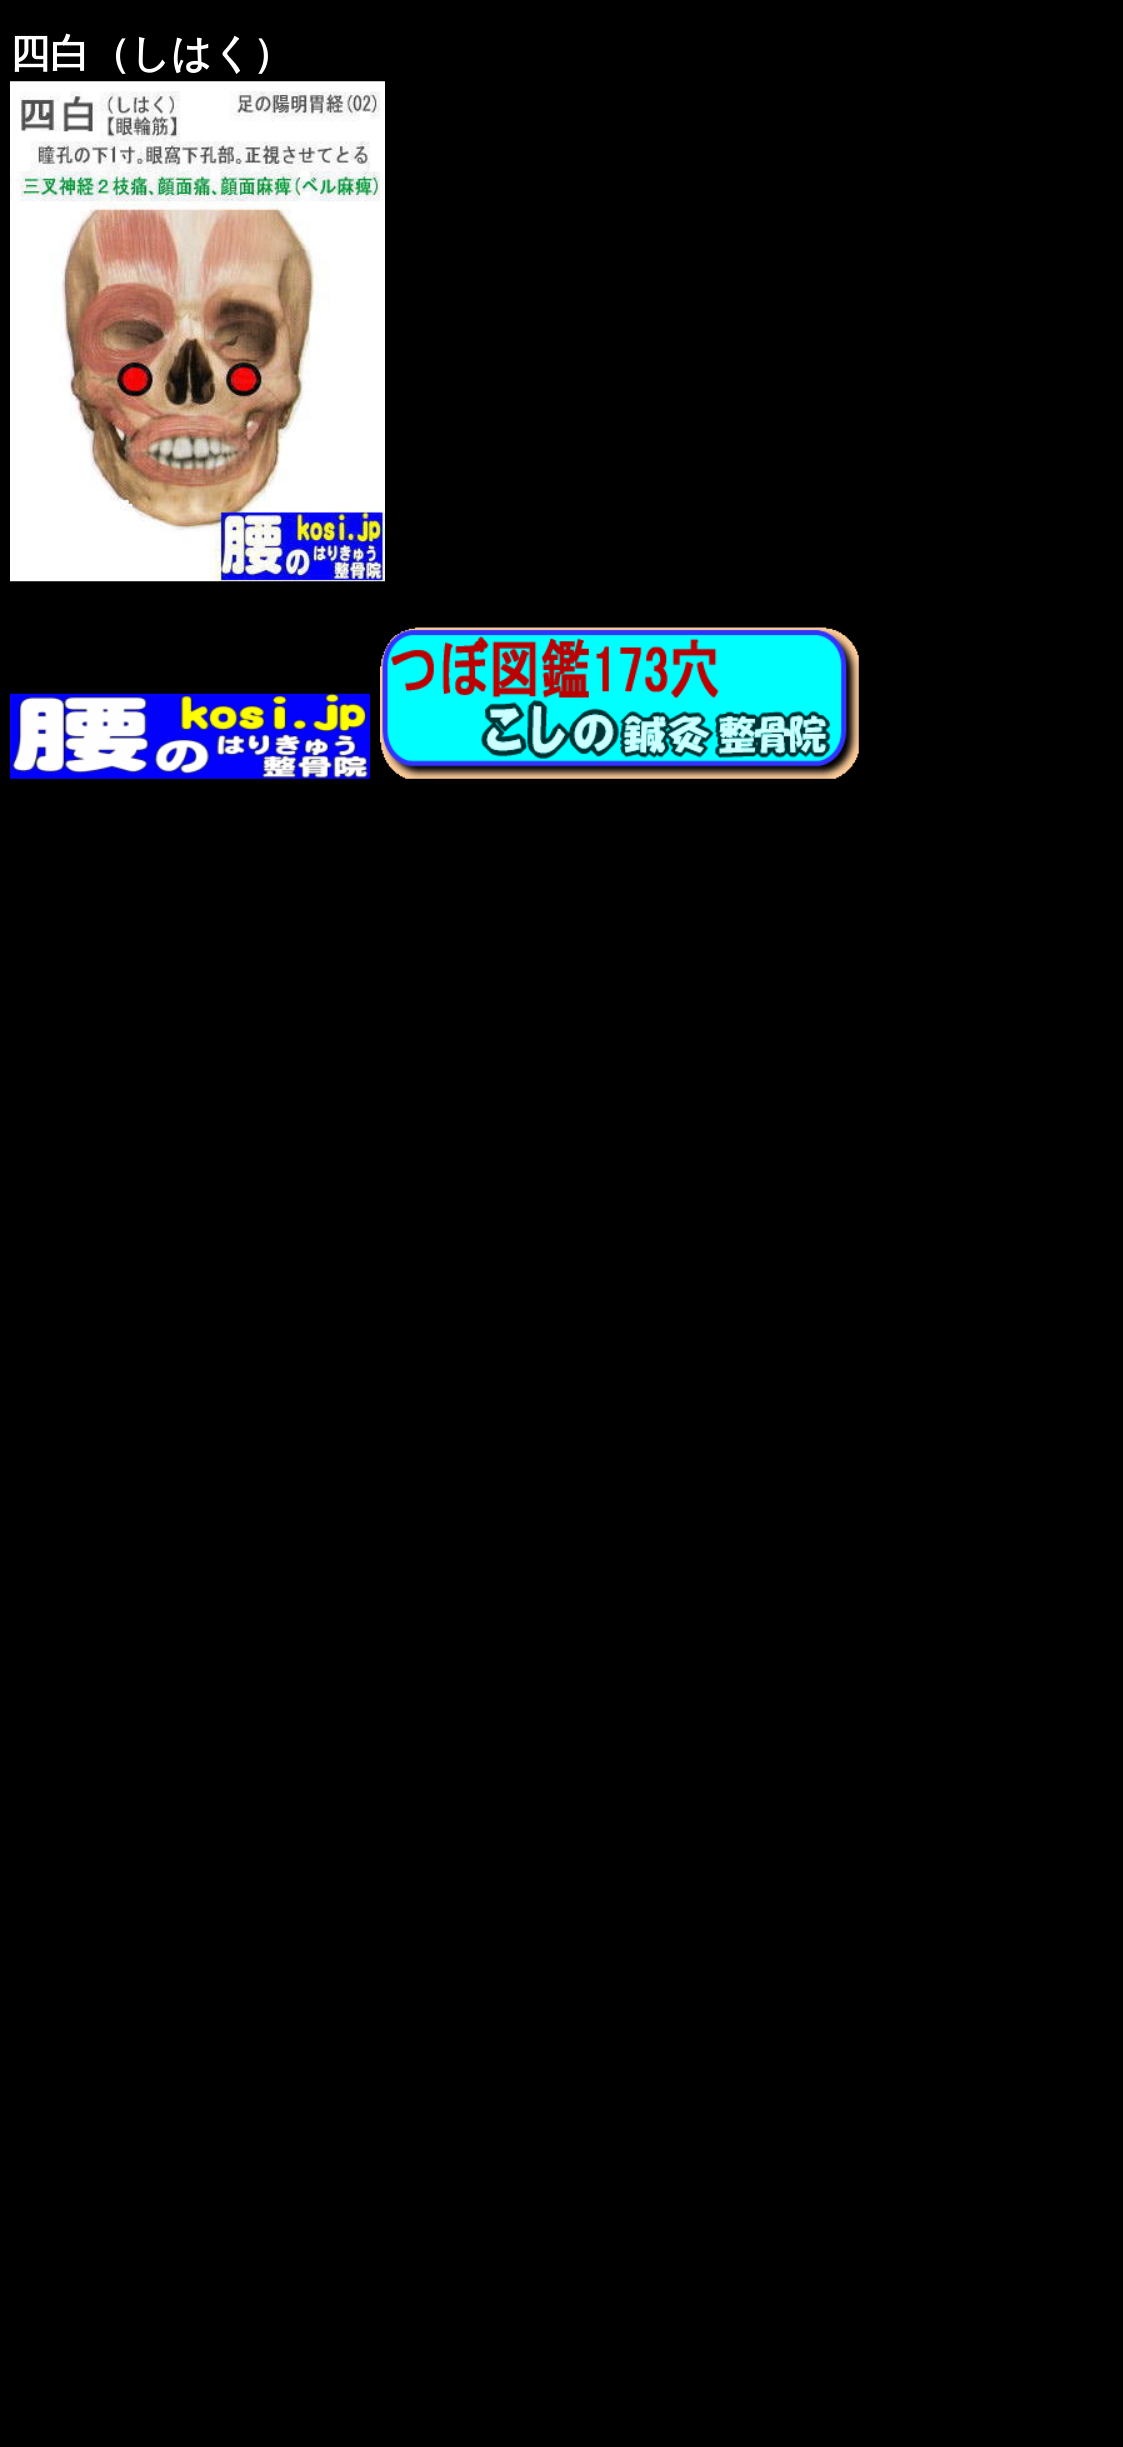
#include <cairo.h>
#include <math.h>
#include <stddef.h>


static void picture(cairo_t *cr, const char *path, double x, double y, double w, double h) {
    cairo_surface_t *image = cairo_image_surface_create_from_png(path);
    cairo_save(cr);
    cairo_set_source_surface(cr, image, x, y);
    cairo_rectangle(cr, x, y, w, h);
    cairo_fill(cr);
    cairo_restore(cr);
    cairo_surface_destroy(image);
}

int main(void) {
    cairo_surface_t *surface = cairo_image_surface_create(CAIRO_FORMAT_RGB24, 1123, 2447);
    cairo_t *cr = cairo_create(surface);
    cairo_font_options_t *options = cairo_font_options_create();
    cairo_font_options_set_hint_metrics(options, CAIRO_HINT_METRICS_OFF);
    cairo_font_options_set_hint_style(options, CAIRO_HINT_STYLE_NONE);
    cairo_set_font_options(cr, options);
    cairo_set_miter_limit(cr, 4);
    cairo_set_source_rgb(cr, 0, 0, 0);
    cairo_paint(cr);
    cairo_select_font_face(cr, "WenQuanYi Zen Hei", CAIRO_FONT_SLANT_NORMAL, CAIRO_FONT_WEIGHT_BOLD);
    cairo_set_font_size(cr, 40);
    cairo_set_source_rgb(cr, 1, 1, 1);
    cairo_move_to(cr, 10, 67);
    cairo_show_text(cr, "四白（しはく）");
    picture(cr, "img1.png", 10, 81, 375, 501);
    picture(cr, "img2.png", 10, 693, 360, 86);
    picture(cr, "img3.png", 380, 627, 479, 152);
    cairo_surface_write_to_png(surface, "page.png");
    cairo_font_options_destroy(options);
    cairo_destroy(cr);
    cairo_surface_destroy(surface);
    return 0;
}
